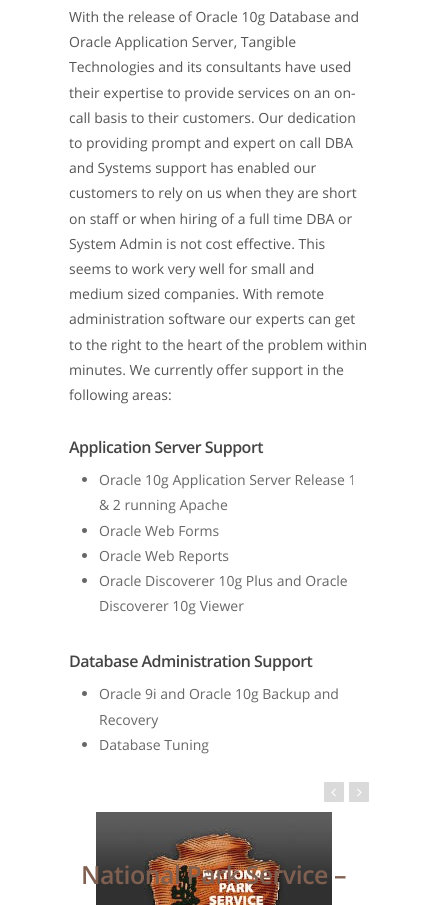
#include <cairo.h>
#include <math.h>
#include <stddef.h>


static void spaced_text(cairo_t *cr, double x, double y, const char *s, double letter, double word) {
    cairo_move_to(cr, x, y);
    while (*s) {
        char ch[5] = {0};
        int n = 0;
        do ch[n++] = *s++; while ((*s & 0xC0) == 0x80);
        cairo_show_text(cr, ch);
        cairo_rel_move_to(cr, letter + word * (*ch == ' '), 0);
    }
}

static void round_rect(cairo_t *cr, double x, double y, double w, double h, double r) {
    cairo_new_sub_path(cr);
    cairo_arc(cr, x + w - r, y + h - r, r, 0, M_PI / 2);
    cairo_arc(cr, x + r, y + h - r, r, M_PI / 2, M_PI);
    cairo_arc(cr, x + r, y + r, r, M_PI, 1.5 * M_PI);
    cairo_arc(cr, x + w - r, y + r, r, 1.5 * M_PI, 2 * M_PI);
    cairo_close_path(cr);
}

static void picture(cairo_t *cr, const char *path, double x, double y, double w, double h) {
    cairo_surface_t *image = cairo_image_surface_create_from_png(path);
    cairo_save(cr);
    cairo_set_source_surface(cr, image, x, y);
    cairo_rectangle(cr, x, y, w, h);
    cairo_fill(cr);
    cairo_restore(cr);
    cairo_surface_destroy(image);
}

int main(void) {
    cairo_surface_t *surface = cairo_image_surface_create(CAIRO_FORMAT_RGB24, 437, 905);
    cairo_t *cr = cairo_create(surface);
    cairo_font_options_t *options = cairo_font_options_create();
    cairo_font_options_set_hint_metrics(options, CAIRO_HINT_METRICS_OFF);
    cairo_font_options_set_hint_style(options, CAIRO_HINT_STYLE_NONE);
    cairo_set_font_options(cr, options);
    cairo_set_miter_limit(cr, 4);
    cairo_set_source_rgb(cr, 1, 1, 1);
    cairo_paint(cr);
    cairo_select_font_face(cr, "Open Sans", CAIRO_FONT_SLANT_NORMAL, CAIRO_FONT_WEIGHT_NORMAL);
    cairo_set_font_size(cr, 14);
    cairo_set_source_rgb(cr, 0.333, 0.333, 0.333);
    cairo_move_to(cr, 69, 22);
    cairo_show_text(cr, "With the release of Oracle 10g Database and");
    cairo_move_to(cr, 69, 47);
    cairo_show_text(cr, "Oracle Application Server, Tangible");
    cairo_move_to(cr, 69, 72);
    cairo_show_text(cr, "Technologies and its consultants have used");
    cairo_move_to(cr, 69, 98);
    cairo_show_text(cr, "their expertise to provide services on an on-");
    cairo_move_to(cr, 69, 123);
    cairo_show_text(cr, "call basis to their customers. Our dedication");
    cairo_move_to(cr, 69, 148);
    cairo_show_text(cr, "to providing prompt and expert on call DBA");
    cairo_move_to(cr, 69, 173);
    cairo_show_text(cr, "and Systems support has enabled our");
    cairo_move_to(cr, 69, 198);
    cairo_show_text(cr, "customers to rely on us when they are short");
    cairo_move_to(cr, 69, 224);
    cairo_show_text(cr, "on staff or when hiring of a full time DBA or");
    cairo_move_to(cr, 69, 249);
    cairo_show_text(cr, "System Admin is not cost effective. This");
    cairo_move_to(cr, 69, 274);
    cairo_show_text(cr, "seems to work very well for small and");
    cairo_move_to(cr, 69, 299);
    cairo_show_text(cr, "medium sized companies. With remote");
    cairo_move_to(cr, 69, 324);
    cairo_show_text(cr, "administration software our experts can get");
    cairo_move_to(cr, 69, 350);
    cairo_show_text(cr, "to the right to the heart of the problem within");
    cairo_move_to(cr, 69, 375);
    cairo_show_text(cr, "minutes. We currently offer support in the");
    cairo_move_to(cr, 69, 400);
    cairo_show_text(cr, "following areas:");
    cairo_select_font_face(cr, "Open Sans SemiBold", CAIRO_FONT_SLANT_NORMAL, CAIRO_FONT_WEIGHT_NORMAL);
    cairo_set_font_size(cr, 16);
    cairo_set_source_rgb(cr, 0.267, 0.267, 0.267);
    spaced_text(cr, 69, 453, "Application Server Support", -0.5, 0);
    cairo_set_source_rgb(cr, 0.404, 0.404, 0.404);
    cairo_new_path(cr);
    cairo_arc(cr, 84.5, 479.5, 2.5, 0, 2 * M_PI);
    cairo_fill(cr);
    cairo_select_font_face(cr, "Open Sans", CAIRO_FONT_SLANT_NORMAL, CAIRO_FONT_WEIGHT_NORMAL);
    cairo_set_font_size(cr, 14);
    cairo_move_to(cr, 99, 485);
    cairo_show_text(cr, "Oracle 10g Application Server Release 1");
    cairo_move_to(cr, 99, 510);
    cairo_show_text(cr, "& 2 running Apache");
    cairo_new_path(cr);
    cairo_arc(cr, 84.5, 530.5, 2.5, 0, 2 * M_PI);
    cairo_fill(cr);
    cairo_move_to(cr, 99, 536);
    cairo_show_text(cr, "Oracle Web Forms");
    cairo_new_path(cr);
    cairo_arc(cr, 84.5, 555.5, 2.5, 0, 2 * M_PI);
    cairo_fill(cr);
    cairo_move_to(cr, 99, 561);
    cairo_show_text(cr, "Oracle Web Reports");
    cairo_new_path(cr);
    cairo_arc(cr, 84.5, 580.5, 2.5, 0, 2 * M_PI);
    cairo_fill(cr);
    cairo_move_to(cr, 99, 586);
    cairo_show_text(cr, "Oracle Discoverer 10g Plus and Oracle");
    cairo_move_to(cr, 99, 611);
    cairo_show_text(cr, "Discoverer 10g Viewer");
    cairo_select_font_face(cr, "Open Sans SemiBold", CAIRO_FONT_SLANT_NORMAL, CAIRO_FONT_WEIGHT_NORMAL);
    cairo_set_font_size(cr, 16);
    cairo_set_source_rgb(cr, 0.267, 0.267, 0.267);
    spaced_text(cr, 69, 667, "Database Administration Support", -0.5, 0);
    cairo_set_source_rgb(cr, 0.404, 0.404, 0.404);
    cairo_new_path(cr);
    cairo_arc(cr, 84.5, 693.5, 2.5, 0, 2 * M_PI);
    cairo_fill(cr);
    cairo_select_font_face(cr, "Open Sans", CAIRO_FONT_SLANT_NORMAL, CAIRO_FONT_WEIGHT_NORMAL);
    cairo_set_font_size(cr, 14);
    cairo_move_to(cr, 99, 699);
    cairo_show_text(cr, "Oracle 9i and Oracle 10g Backup and");
    cairo_move_to(cr, 99, 725);
    cairo_show_text(cr, "Recovery");
    cairo_new_path(cr);
    cairo_arc(cr, 84.5, 744.5, 2.5, 0, 2 * M_PI);
    cairo_fill(cr);
    cairo_move_to(cr, 99, 750);
    cairo_show_text(cr, "Database Tuning");
    cairo_set_source_rgb(cr, 0.855, 0.855, 0.855);
    round_rect(cr, 324, 782, 20, 20, 1);
    cairo_fill(cr);
    picture(cr, "img1.png", 331, 788, 5, 9);
    round_rect(cr, 349, 782, 20, 20, 1);
    cairo_fill(cr);
    picture(cr, "img2.png", 357, 788, 5, 9);
    picture(cr, "img3.png", 96, 812, 236, 93);
    cairo_select_font_face(cr, "Open Sans SemiBold", CAIRO_FONT_SLANT_NORMAL, CAIRO_FONT_WEIGHT_NORMAL);
    cairo_set_font_size(cr, 25);
    cairo_set_source_rgb(cr, 0.498, 0.373, 0.314);
    spaced_text(cr, 81, 884, "National Park Service –", -0.5, 0);
    cairo_surface_write_to_png(surface, "page.png");
    cairo_font_options_destroy(options);
    cairo_destroy(cr);
    cairo_surface_destroy(surface);
    return 0;
}
